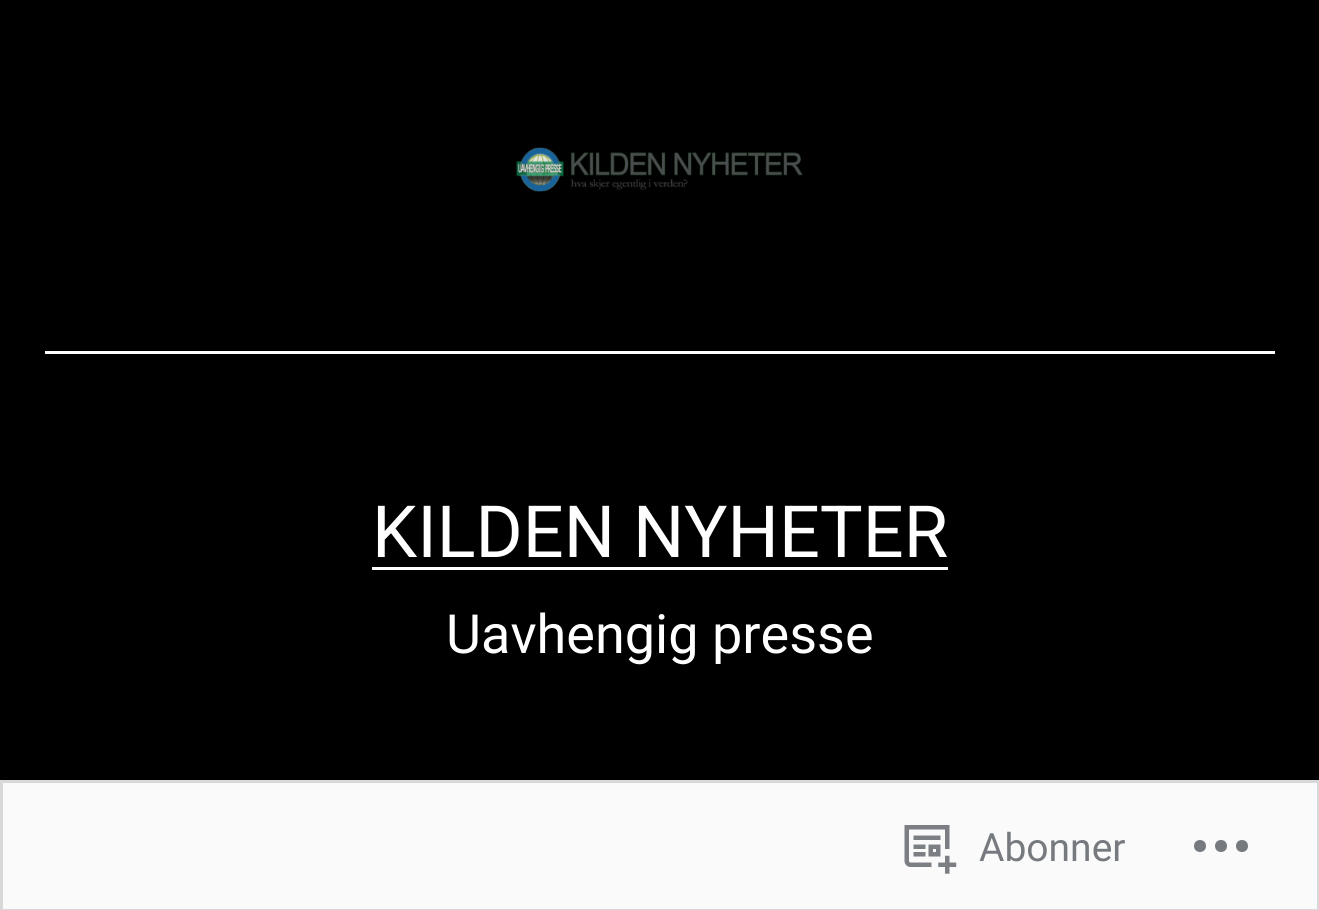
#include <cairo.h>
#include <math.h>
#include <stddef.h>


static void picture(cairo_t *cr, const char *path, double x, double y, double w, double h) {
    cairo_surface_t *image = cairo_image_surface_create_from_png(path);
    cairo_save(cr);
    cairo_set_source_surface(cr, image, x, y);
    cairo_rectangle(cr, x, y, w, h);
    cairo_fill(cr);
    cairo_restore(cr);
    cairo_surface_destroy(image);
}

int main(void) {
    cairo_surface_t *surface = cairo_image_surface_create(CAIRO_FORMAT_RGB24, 1319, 910);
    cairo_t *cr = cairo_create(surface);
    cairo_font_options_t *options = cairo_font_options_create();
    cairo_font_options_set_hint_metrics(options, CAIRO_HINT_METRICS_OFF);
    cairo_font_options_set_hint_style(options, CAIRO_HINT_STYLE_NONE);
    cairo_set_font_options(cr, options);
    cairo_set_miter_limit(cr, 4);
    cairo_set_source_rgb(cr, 0, 0, 0);
    cairo_paint(cr);
    cairo_set_source_rgb(cr, 1, 1, 1);
    cairo_rectangle(cr, 45, 351, 1230, 3);
    cairo_fill(cr);
    picture(cr, "img1.png", 516, 147, 287, 45);
    cairo_select_font_face(cr, "Roboto", CAIRO_FONT_SLANT_NORMAL, CAIRO_FONT_WEIGHT_NORMAL);
    cairo_set_font_size(cr, 72);
    cairo_move_to(cr, 372, 557);
    cairo_show_text(cr, "KILDEN NYHETER");
    cairo_rectangle(cr, 372, 567, 576, 3);
    cairo_fill(cr);
    cairo_set_font_size(cr, 54);
    cairo_move_to(cr, 446, 653);
    cairo_show_text(cr, "Uavhengig presse");
    cairo_set_source_rgb(cr, 0.98, 0.98, 0.98);
    cairo_rectangle(cr, 1.5, 781.5, 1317, 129);
    cairo_fill_preserve(cr);
    cairo_set_source_rgb(cr, 0.847, 0.847, 0.855);
    cairo_set_line_width(cr, 3);
    cairo_stroke(cr);
    picture(cr, "img2.png", 904, 825, 53, 49);
    cairo_set_font_size(cr, 39);
    cairo_set_source_rgb(cr, 0.463, 0.478, 0.498);
    cairo_move_to(cr, 979, 861);
    cairo_show_text(cr, "Abonner");
    cairo_new_path(cr);
    cairo_move_to(cr, 1206, 846);
    cairo_curve_to(cr, 1206, 854, 1194, 854, 1194, 846);
    cairo_curve_to(cr, 1194, 838, 1206, 838, 1206, 846);
    cairo_close_path(cr);
    cairo_move_to(cr, 1242, 840);
    cairo_curve_to(cr, 1234, 840, 1234, 852, 1242, 852);
    cairo_curve_to(cr, 1250, 852, 1250, 840, 1242, 840);
    cairo_close_path(cr);
    cairo_move_to(cr, 1221, 840);
    cairo_curve_to(cr, 1213, 840, 1213, 852, 1221, 852);
    cairo_curve_to(cr, 1229, 852, 1229, 840, 1221, 840);
    cairo_close_path(cr);
    cairo_fill(cr);
    cairo_surface_write_to_png(surface, "page.png");
    cairo_font_options_destroy(options);
    cairo_destroy(cr);
    cairo_surface_destroy(surface);
    return 0;
}
